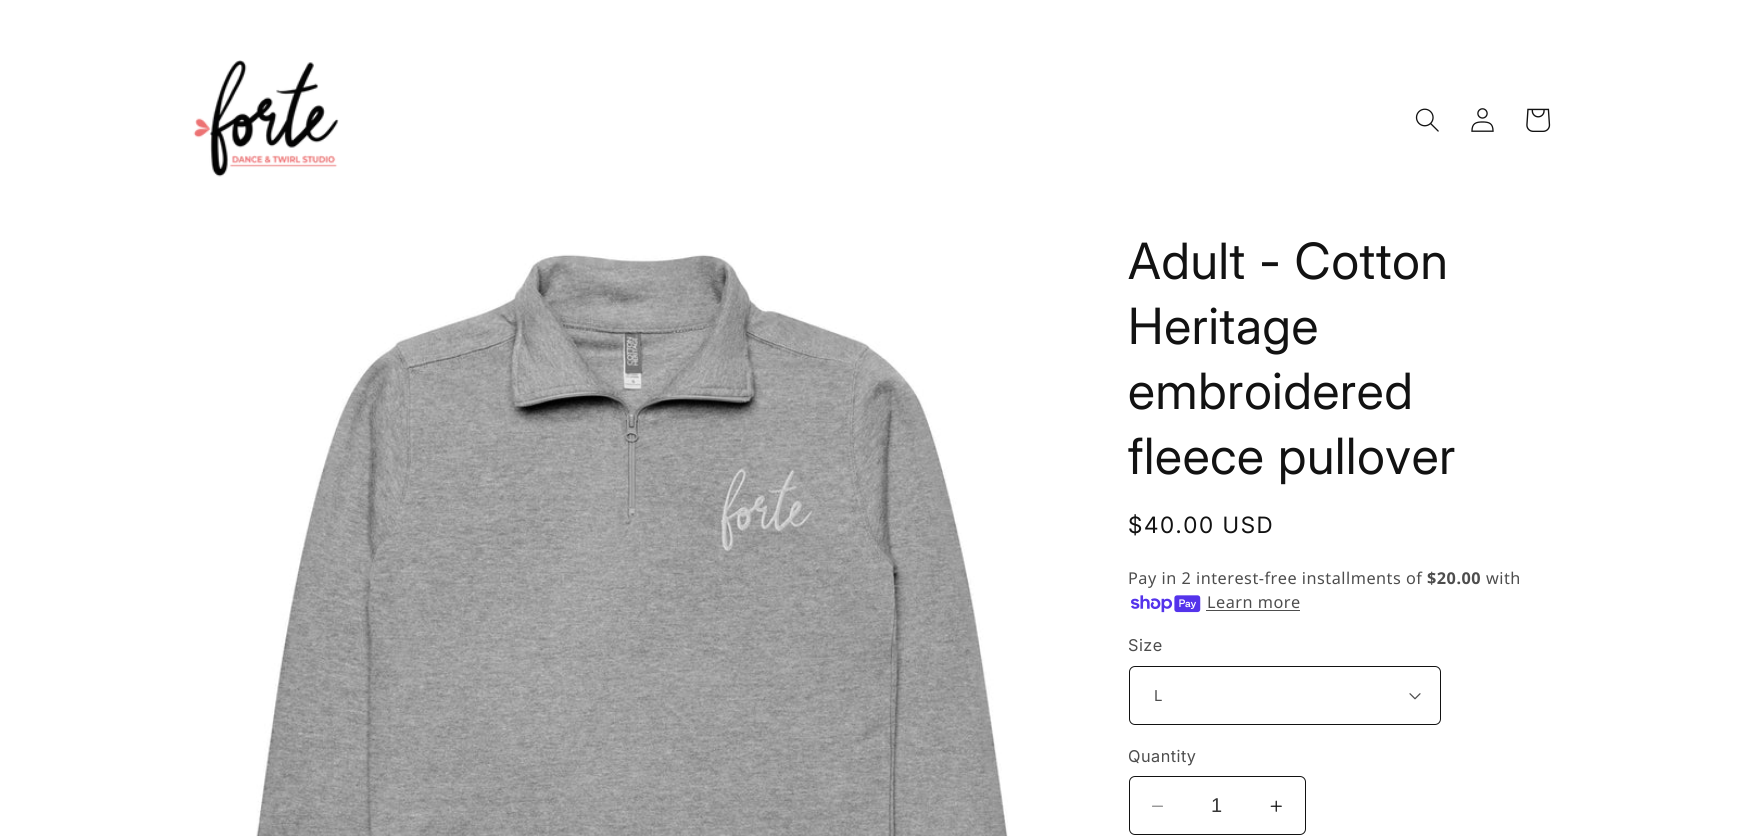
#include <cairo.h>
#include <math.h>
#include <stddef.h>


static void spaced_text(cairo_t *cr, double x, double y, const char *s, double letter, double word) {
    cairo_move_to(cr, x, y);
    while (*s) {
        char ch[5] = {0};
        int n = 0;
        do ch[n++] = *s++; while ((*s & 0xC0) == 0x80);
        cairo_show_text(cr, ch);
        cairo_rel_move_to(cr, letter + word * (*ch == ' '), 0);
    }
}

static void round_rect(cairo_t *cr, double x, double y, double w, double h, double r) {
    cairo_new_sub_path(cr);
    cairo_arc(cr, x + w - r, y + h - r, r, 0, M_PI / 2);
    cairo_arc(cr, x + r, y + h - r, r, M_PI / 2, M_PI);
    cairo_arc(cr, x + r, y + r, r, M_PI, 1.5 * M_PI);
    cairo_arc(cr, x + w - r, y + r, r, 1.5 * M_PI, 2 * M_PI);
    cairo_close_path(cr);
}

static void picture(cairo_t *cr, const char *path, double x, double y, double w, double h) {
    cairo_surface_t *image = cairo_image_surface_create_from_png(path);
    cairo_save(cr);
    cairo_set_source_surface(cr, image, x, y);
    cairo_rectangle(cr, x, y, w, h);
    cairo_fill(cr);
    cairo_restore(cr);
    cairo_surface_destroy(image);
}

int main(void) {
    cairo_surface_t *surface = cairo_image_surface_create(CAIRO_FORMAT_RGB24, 1743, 836);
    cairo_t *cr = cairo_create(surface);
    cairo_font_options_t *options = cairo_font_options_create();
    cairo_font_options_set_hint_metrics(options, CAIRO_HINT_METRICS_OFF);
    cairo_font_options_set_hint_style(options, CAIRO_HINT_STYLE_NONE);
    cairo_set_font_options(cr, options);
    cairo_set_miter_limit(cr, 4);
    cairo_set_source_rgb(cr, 1, 1, 1);
    cairo_paint(cr);
    picture(cr, "img1.png", 193, 60, 146, 117);
    picture(cr, "img2.png", 1415, 108, 24, 24);
    picture(cr, "img3.png", 1471, 108, 23, 24);
    picture(cr, "img4.png", 1526, 108, 25, 24);
    picture(cr, "img5.png", 256, 254, 752, 582);
    cairo_select_font_face(cr, "Inter", CAIRO_FONT_SLANT_NORMAL, CAIRO_FONT_WEIGHT_NORMAL);
    cairo_set_font_size(cr, 50);
    cairo_set_source_rgb(cr, 0.071, 0.071, 0.071);
    spaced_text(cr, 1128, 279, "Adult - Cotton", 0.75, 0);
    spaced_text(cr, 1128, 344, "Heritage", 0.75, 0);
    spaced_text(cr, 1128, 409, "embroidered", 0.75, 0);
    spaced_text(cr, 1128, 474, "fleece pullover", 0.75, 0);
    cairo_select_font_face(cr, "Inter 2", CAIRO_FONT_SLANT_NORMAL, CAIRO_FONT_WEIGHT_NORMAL);
    cairo_set_font_size(cr, 22.5);
    spaced_text(cr, 1128, 533, "$40.00 USD", 1.6, 0);
    cairo_select_font_face(cr, "Noto Sans", CAIRO_FONT_SLANT_NORMAL, CAIRO_FONT_WEIGHT_NORMAL);
    cairo_set_font_size(cr, 16.25);
    cairo_set_source_rgb(cr, 0.302, 0.302, 0.302);
    spaced_text(cr, 1128, 584, "Pay in 2 interest-free installments of", 0.5, 0);
    cairo_select_font_face(cr, "Noto Sans", CAIRO_FONT_SLANT_NORMAL, CAIRO_FONT_WEIGHT_BOLD);
    spaced_text(cr, 1427, 584, "$20.00", 0.5, 0);
    cairo_select_font_face(cr, "Noto Sans", CAIRO_FONT_SLANT_NORMAL, CAIRO_FONT_WEIGHT_NORMAL);
    spaced_text(cr, 1486, 584, "with", 0.5, 0);
    picture(cr, "img6.png", 1131, 595, 70, 18);
    spaced_text(cr, 1207, 608, "Learn more", 0.5, 0);
    cairo_rectangle(cr, 1206, 610, 94, 1);
    cairo_fill(cr);
    cairo_select_font_face(cr, "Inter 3", CAIRO_FONT_SLANT_NORMAL, CAIRO_FONT_WEIGHT_NORMAL);
    spaced_text(cr, 1128, 651, "Size", 0.5, 0);
    picture(cr, "img7.png", 1409, 693, 12, 7);
    round_rect(cr, 1129.5, 666.5, 311, 58, 5.5);
    cairo_set_source_rgb(cr, 0.071, 0.071, 0.071);
    cairo_set_line_width(cr, 1);
    cairo_stroke(cr);
    cairo_set_font_size(cr, 15);
    cairo_set_source_rgb(cr, 0.302, 0.302, 0.302);
    spaced_text(cr, 1154, 701, "L", 0.5, 0);
    cairo_set_font_size(cr, 16.25);
    spaced_text(cr, 1128, 762, "Quantity", 0.5, 0);
    picture(cr, "img8.png", 1152, 805, 11, 2);
    picture(cr, "img9.png", 1270, 800, 12, 12);
    round_rect(cr, 1129.5, 776.5, 176, 58, 5.5);
    cairo_set_source_rgb(cr, 0.071, 0.071, 0.071);
    cairo_stroke(cr);
    cairo_select_font_face(cr, "Liberation Sans", CAIRO_FONT_SLANT_NORMAL, CAIRO_FONT_WEIGHT_NORMAL);
    cairo_set_font_size(cr, 20);
    cairo_set_source_rgb(cr, 0.212, 0.212, 0.212);
    cairo_move_to(cr, 1211, 812);
    cairo_show_text(cr, "1");
    cairo_surface_write_to_png(surface, "page.png");
    cairo_font_options_destroy(options);
    cairo_destroy(cr);
    cairo_surface_destroy(surface);
    return 0;
}
